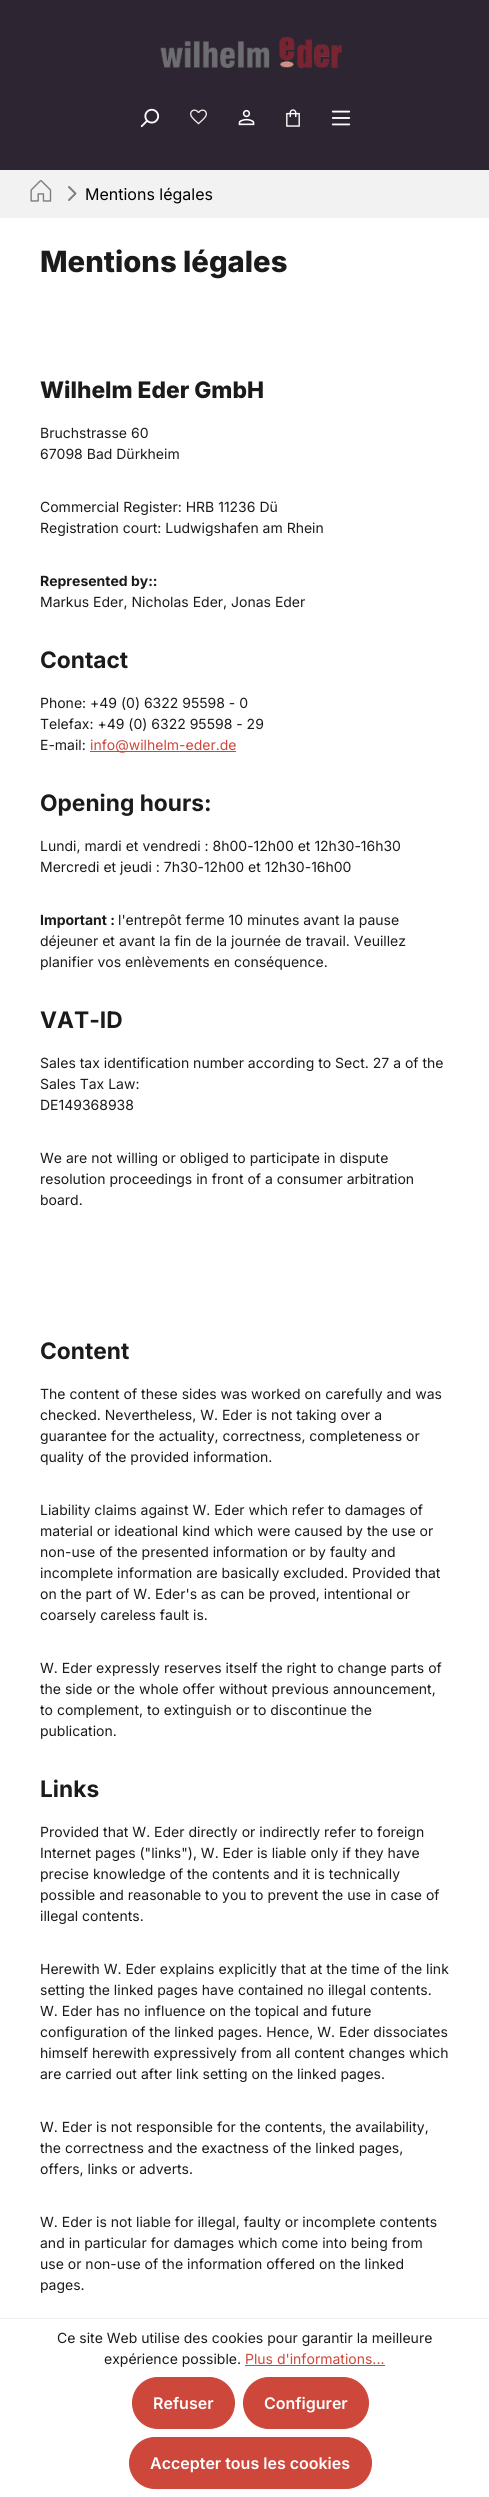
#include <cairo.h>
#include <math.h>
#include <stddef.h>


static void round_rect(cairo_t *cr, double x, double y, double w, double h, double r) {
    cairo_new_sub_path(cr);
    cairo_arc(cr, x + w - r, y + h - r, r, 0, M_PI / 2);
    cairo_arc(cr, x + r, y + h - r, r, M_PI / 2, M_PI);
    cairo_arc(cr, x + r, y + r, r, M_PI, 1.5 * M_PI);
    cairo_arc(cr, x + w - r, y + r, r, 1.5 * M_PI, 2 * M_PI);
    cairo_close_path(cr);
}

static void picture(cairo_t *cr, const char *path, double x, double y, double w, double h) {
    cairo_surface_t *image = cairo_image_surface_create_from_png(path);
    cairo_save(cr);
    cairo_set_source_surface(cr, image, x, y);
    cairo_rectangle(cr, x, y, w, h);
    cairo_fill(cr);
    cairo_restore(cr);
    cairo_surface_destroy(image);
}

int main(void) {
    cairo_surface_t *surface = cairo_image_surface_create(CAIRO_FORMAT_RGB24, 489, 2497);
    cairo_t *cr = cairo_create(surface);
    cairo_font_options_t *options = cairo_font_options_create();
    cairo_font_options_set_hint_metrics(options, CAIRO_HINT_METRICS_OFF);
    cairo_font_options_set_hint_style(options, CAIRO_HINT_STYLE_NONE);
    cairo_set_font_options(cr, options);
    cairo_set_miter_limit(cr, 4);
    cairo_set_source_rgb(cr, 1, 1, 1);
    cairo_paint(cr);
    cairo_set_source_rgb(cr, 0.18, 0.145, 0.2);
    cairo_rectangle(cr, 0, 0, 489, 170);
    cairo_fill(cr);
    picture(cr, "img1.png", 160, 36, 182, 32);
    picture(cr, "img2.png", 140, 108, 20, 20);
    picture(cr, "img3.png", 190, 109, 17, 16);
    picture(cr, "img4.png", 238, 109, 17, 17);
    picture(cr, "img5.png", 286, 109, 14, 18);
    picture(cr, "img6.png", 331, 110, 20, 16);
    cairo_set_source_rgb(cr, 0.949, 0.949, 0.949);
    cairo_rectangle(cr, 0, 170, 489, 48);
    cairo_fill(cr);
    picture(cr, "img7.png", 30, 180, 22, 22);
    cairo_new_path(cr);
    cairo_move_to(cr, 69, 187);
    cairo_line_to(cr, 75.5, 193.5);
    cairo_line_to(cr, 69, 200);
    cairo_set_source_rgb(cr, 0.494, 0.494, 0.494);
    cairo_set_line_cap(cr, CAIRO_LINE_CAP_ROUND);
    cairo_set_line_join(cr, CAIRO_LINE_JOIN_ROUND);
    cairo_stroke(cr);
    cairo_select_font_face(cr, "Inter", CAIRO_FONT_SLANT_NORMAL, CAIRO_FONT_WEIGHT_NORMAL);
    cairo_set_font_size(cr, 16);
    cairo_set_source_rgb(cr, 0, 0, 0);
    cairo_move_to(cr, 85, 200);
    cairo_show_text(cr, "Mentions légales");
    cairo_select_font_face(cr, "Inter ExtraBold", CAIRO_FONT_SLANT_NORMAL, CAIRO_FONT_WEIGHT_NORMAL);
    cairo_set_font_size(cr, 29.25);
    cairo_set_source_rgb(cr, 0.106, 0.106, 0.106);
    cairo_move_to(cr, 40, 272);
    cairo_show_text(cr, "Mentions légales");
    cairo_set_font_size(cr, 22.75);
    cairo_move_to(cr, 40, 398);
    cairo_show_text(cr, "Wilhelm Eder GmbH");
    cairo_select_font_face(cr, "Inter", CAIRO_FONT_SLANT_NORMAL, CAIRO_FONT_WEIGHT_NORMAL);
    cairo_set_font_size(cr, 14);
    cairo_move_to(cr, 40, 438);
    cairo_show_text(cr, "Bruchstrasse 60");
    cairo_move_to(cr, 40, 459);
    cairo_show_text(cr, "67098 Bad Dürkheim");
    cairo_move_to(cr, 40, 512);
    cairo_show_text(cr, "Commercial Register: HRB 11236 Dü");
    cairo_move_to(cr, 40, 533);
    cairo_show_text(cr, "Registration court: Ludwigshafen am Rhein");
    cairo_select_font_face(cr, "Inter", CAIRO_FONT_SLANT_NORMAL, CAIRO_FONT_WEIGHT_BOLD);
    cairo_move_to(cr, 40, 586);
    cairo_show_text(cr, "Represented by::");
    cairo_select_font_face(cr, "Inter", CAIRO_FONT_SLANT_NORMAL, CAIRO_FONT_WEIGHT_NORMAL);
    cairo_move_to(cr, 40, 607);
    cairo_show_text(cr, "Markus Eder, Nicholas Eder, Jonas Eder");
    cairo_select_font_face(cr, "Inter", CAIRO_FONT_SLANT_NORMAL, CAIRO_FONT_WEIGHT_BOLD);
    cairo_set_font_size(cr, 22.75);
    cairo_move_to(cr, 40, 668);
    cairo_show_text(cr, "Contact");
    cairo_select_font_face(cr, "Inter", CAIRO_FONT_SLANT_NORMAL, CAIRO_FONT_WEIGHT_NORMAL);
    cairo_set_font_size(cr, 14);
    cairo_move_to(cr, 40, 708);
    cairo_show_text(cr, "Phone: +49 (0) 6322 95598 - 0");
    cairo_move_to(cr, 40, 729);
    cairo_show_text(cr, "Telefax: +49 (0) 6322 95598 - 29");
    cairo_move_to(cr, 40, 750);
    cairo_show_text(cr, "E-mail:");
    cairo_set_source_rgb(cr, 0.808, 0.278, 0.231);
    cairo_rectangle(cr, 90, 751, 146, 1);
    cairo_fill(cr);
    cairo_move_to(cr, 90, 750);
    cairo_show_text(cr, "info@wilhelm-eder.de");
    cairo_select_font_face(cr, "Inter", CAIRO_FONT_SLANT_NORMAL, CAIRO_FONT_WEIGHT_BOLD);
    cairo_set_font_size(cr, 22.75);
    cairo_set_source_rgb(cr, 0.106, 0.106, 0.106);
    cairo_move_to(cr, 40, 811);
    cairo_show_text(cr, "Opening hours:");
    cairo_select_font_face(cr, "Inter", CAIRO_FONT_SLANT_NORMAL, CAIRO_FONT_WEIGHT_NORMAL);
    cairo_set_font_size(cr, 14);
    cairo_move_to(cr, 40, 851);
    cairo_show_text(cr, "Lundi, mardi et vendredi : 8h00-12h00 et 12h30-16h30");
    cairo_move_to(cr, 40, 872);
    cairo_show_text(cr, "Mercredi et jeudi : 7h30-12h00 et 12h30-16h00");
    cairo_select_font_face(cr, "Inter", CAIRO_FONT_SLANT_NORMAL, CAIRO_FONT_WEIGHT_BOLD);
    cairo_move_to(cr, 40, 925);
    cairo_show_text(cr, "Important :");
    cairo_select_font_face(cr, "Inter", CAIRO_FONT_SLANT_NORMAL, CAIRO_FONT_WEIGHT_NORMAL);
    cairo_move_to(cr, 118, 925);
    cairo_show_text(cr, "l'entrepôt ferme 10 minutes avant la pause");
    cairo_move_to(cr, 40, 946);
    cairo_show_text(cr, "déjeuner et avant la fin de la journée de travail. Veuillez");
    cairo_move_to(cr, 40, 967);
    cairo_show_text(cr, "planifier vos enlèvements en conséquence.");
    cairo_select_font_face(cr, "Inter", CAIRO_FONT_SLANT_NORMAL, CAIRO_FONT_WEIGHT_BOLD);
    cairo_set_font_size(cr, 22.75);
    cairo_move_to(cr, 40, 1028);
    cairo_show_text(cr, "VAT-ID");
    cairo_select_font_face(cr, "Inter", CAIRO_FONT_SLANT_NORMAL, CAIRO_FONT_WEIGHT_NORMAL);
    cairo_set_font_size(cr, 14);
    cairo_move_to(cr, 40, 1068);
    cairo_show_text(cr, "Sales tax identification number according to Sect. 27 a of the");
    cairo_move_to(cr, 40, 1089);
    cairo_show_text(cr, "Sales Tax Law:");
    cairo_move_to(cr, 40, 1110);
    cairo_show_text(cr, "DE149368938");
    cairo_move_to(cr, 40, 1163);
    cairo_show_text(cr, "We are not willing or obliged to participate in dispute");
    cairo_move_to(cr, 40, 1184);
    cairo_show_text(cr, "resolution proceedings in front of a consumer arbitration");
    cairo_move_to(cr, 40, 1205);
    cairo_show_text(cr, "board.");
    cairo_select_font_face(cr, "Inter", CAIRO_FONT_SLANT_NORMAL, CAIRO_FONT_WEIGHT_BOLD);
    cairo_set_font_size(cr, 22.75);
    cairo_move_to(cr, 40, 1359);
    cairo_show_text(cr, "Content");
    cairo_select_font_face(cr, "Inter", CAIRO_FONT_SLANT_NORMAL, CAIRO_FONT_WEIGHT_NORMAL);
    cairo_set_font_size(cr, 14);
    cairo_move_to(cr, 40, 1399);
    cairo_show_text(cr, "The content of these sides was worked on carefully and was");
    cairo_move_to(cr, 40, 1420);
    cairo_show_text(cr, "checked. Nevertheless, W. Eder is not taking over a");
    cairo_move_to(cr, 40, 1441);
    cairo_show_text(cr, "guarantee for the actuality, correctness, completeness or");
    cairo_move_to(cr, 40, 1462);
    cairo_show_text(cr, "quality of the provided information.");
    cairo_move_to(cr, 40, 1515);
    cairo_show_text(cr, "Liability claims against W. Eder which refer to damages of");
    cairo_move_to(cr, 40, 1536);
    cairo_show_text(cr, "material or ideational kind which were caused by the use or");
    cairo_move_to(cr, 40, 1557);
    cairo_show_text(cr, "non-use of the presented information or by faulty and");
    cairo_move_to(cr, 40, 1578);
    cairo_show_text(cr, "incomplete information are basically excluded. Provided that");
    cairo_move_to(cr, 40, 1599);
    cairo_show_text(cr, "on the part of W. Eder's as can be proved, intentional or");
    cairo_move_to(cr, 40, 1620);
    cairo_show_text(cr, "coarsely careless fault is.");
    cairo_move_to(cr, 40, 1673);
    cairo_show_text(cr, "W. Eder expressly reserves itself the right to change parts of");
    cairo_move_to(cr, 40, 1694);
    cairo_show_text(cr, "the side or the whole offer without previous announcement,");
    cairo_move_to(cr, 40, 1715);
    cairo_show_text(cr, "to complement, to extinguish or to discontinue the");
    cairo_move_to(cr, 40, 1736);
    cairo_show_text(cr, "publication.");
    cairo_select_font_face(cr, "Inter", CAIRO_FONT_SLANT_NORMAL, CAIRO_FONT_WEIGHT_BOLD);
    cairo_set_font_size(cr, 22.75);
    cairo_move_to(cr, 40, 1797);
    cairo_show_text(cr, "Links");
    cairo_select_font_face(cr, "Inter", CAIRO_FONT_SLANT_NORMAL, CAIRO_FONT_WEIGHT_NORMAL);
    cairo_set_font_size(cr, 14);
    cairo_move_to(cr, 40, 1837);
    cairo_show_text(cr, "Provided that W. Eder directly or indirectly refer to foreign");
    cairo_move_to(cr, 40, 1858);
    cairo_show_text(cr, "Internet pages (\"links\"), W. Eder is liable only if they have");
    cairo_move_to(cr, 40, 1879);
    cairo_show_text(cr, "precise knowledge of the contents and it is technically");
    cairo_move_to(cr, 40, 1900);
    cairo_show_text(cr, "possible and reasonable to you to prevent the use in case of");
    cairo_move_to(cr, 40, 1921);
    cairo_show_text(cr, "illegal contents.");
    cairo_move_to(cr, 40, 1974);
    cairo_show_text(cr, "Herewith W. Eder explains explicitly that at the time of the link");
    cairo_move_to(cr, 40, 1995);
    cairo_show_text(cr, "setting the linked pages have contained no illegal contents.");
    cairo_move_to(cr, 40, 2016);
    cairo_show_text(cr, "W. Eder has no influence on the topical and future");
    cairo_move_to(cr, 40, 2037);
    cairo_show_text(cr, "configuration of the linked pages. Hence, W. Eder dissociates");
    cairo_move_to(cr, 40, 2058);
    cairo_show_text(cr, "himself herewith expressively from all content changes which");
    cairo_move_to(cr, 40, 2079);
    cairo_show_text(cr, "are carried out after link setting on the linked pages.");
    cairo_move_to(cr, 40, 2132);
    cairo_show_text(cr, "W. Eder is not responsible for the contents, the availability,");
    cairo_move_to(cr, 40, 2153);
    cairo_show_text(cr, "the correctness and the exactness of the linked pages,");
    cairo_move_to(cr, 40, 2174);
    cairo_show_text(cr, "offers, links or adverts.");
    cairo_move_to(cr, 40, 2227);
    cairo_show_text(cr, "W. Eder is not liable for illegal, faulty or incomplete contents");
    cairo_move_to(cr, 40, 2248);
    cairo_show_text(cr, "and in particular for damages which come into being from");
    cairo_move_to(cr, 40, 2269);
    cairo_show_text(cr, "use or non-use of the information offered on the linked");
    cairo_move_to(cr, 40, 2290);
    cairo_show_text(cr, "pages.");
    cairo_set_source_rgb(cr, 0.933, 0.933, 0.933);
    cairo_rectangle(cr, 0, 2318, 489, 1);
    cairo_fill(cr);
    cairo_set_source_rgb(cr, 0.106, 0.106, 0.106);
    cairo_move_to(cr, 57, 2343);
    cairo_show_text(cr, "Ce site Web utilise des cookies pour garantir la meilleure");
    cairo_move_to(cr, 104, 2364);
    cairo_show_text(cr, "expérience possible.");
    cairo_set_source_rgb(cr, 0.808, 0.278, 0.231);
    cairo_move_to(cr, 245, 2364);
    cairo_show_text(cr, "Plus d'informations...");
    cairo_rectangle(cr, 245, 2365, 140, 1);
    cairo_fill(cr);
    round_rect(cr, 132.5, 2377.5, 102, 51, 25.5);
    cairo_fill_preserve(cr);
    cairo_set_line_width(cr, 1);
    cairo_set_line_cap(cr, CAIRO_LINE_CAP_BUTT);
    cairo_set_line_join(cr, CAIRO_LINE_JOIN_MITER);
    cairo_stroke(cr);
    cairo_select_font_face(cr, "Inter SemiBold", CAIRO_FONT_SLANT_NORMAL, CAIRO_FONT_WEIGHT_NORMAL);
    cairo_set_font_size(cr, 16);
    cairo_set_source_rgb(cr, 1, 1, 1);
    cairo_move_to(cr, 153, 2409);
    cairo_show_text(cr, "Refuser");
    cairo_set_source_rgb(cr, 0.808, 0.278, 0.231);
    round_rect(cr, 243.5, 2377.5, 125, 51, 25.5);
    cairo_fill_preserve(cr);
    cairo_stroke(cr);
    cairo_set_source_rgb(cr, 1, 1, 1);
    cairo_move_to(cr, 264, 2409);
    cairo_show_text(cr, "Configurer");
    cairo_set_source_rgb(cr, 0.808, 0.278, 0.231);
    round_rect(cr, 129.5, 2437.5, 242, 51, 25.5);
    cairo_fill_preserve(cr);
    cairo_stroke(cr);
    cairo_set_source_rgb(cr, 1, 1, 1);
    cairo_move_to(cr, 150, 2469);
    cairo_show_text(cr, "Accepter tous les cookies");
    cairo_surface_write_to_png(surface, "page.png");
    cairo_font_options_destroy(options);
    cairo_destroy(cr);
    cairo_surface_destroy(surface);
    return 0;
}
